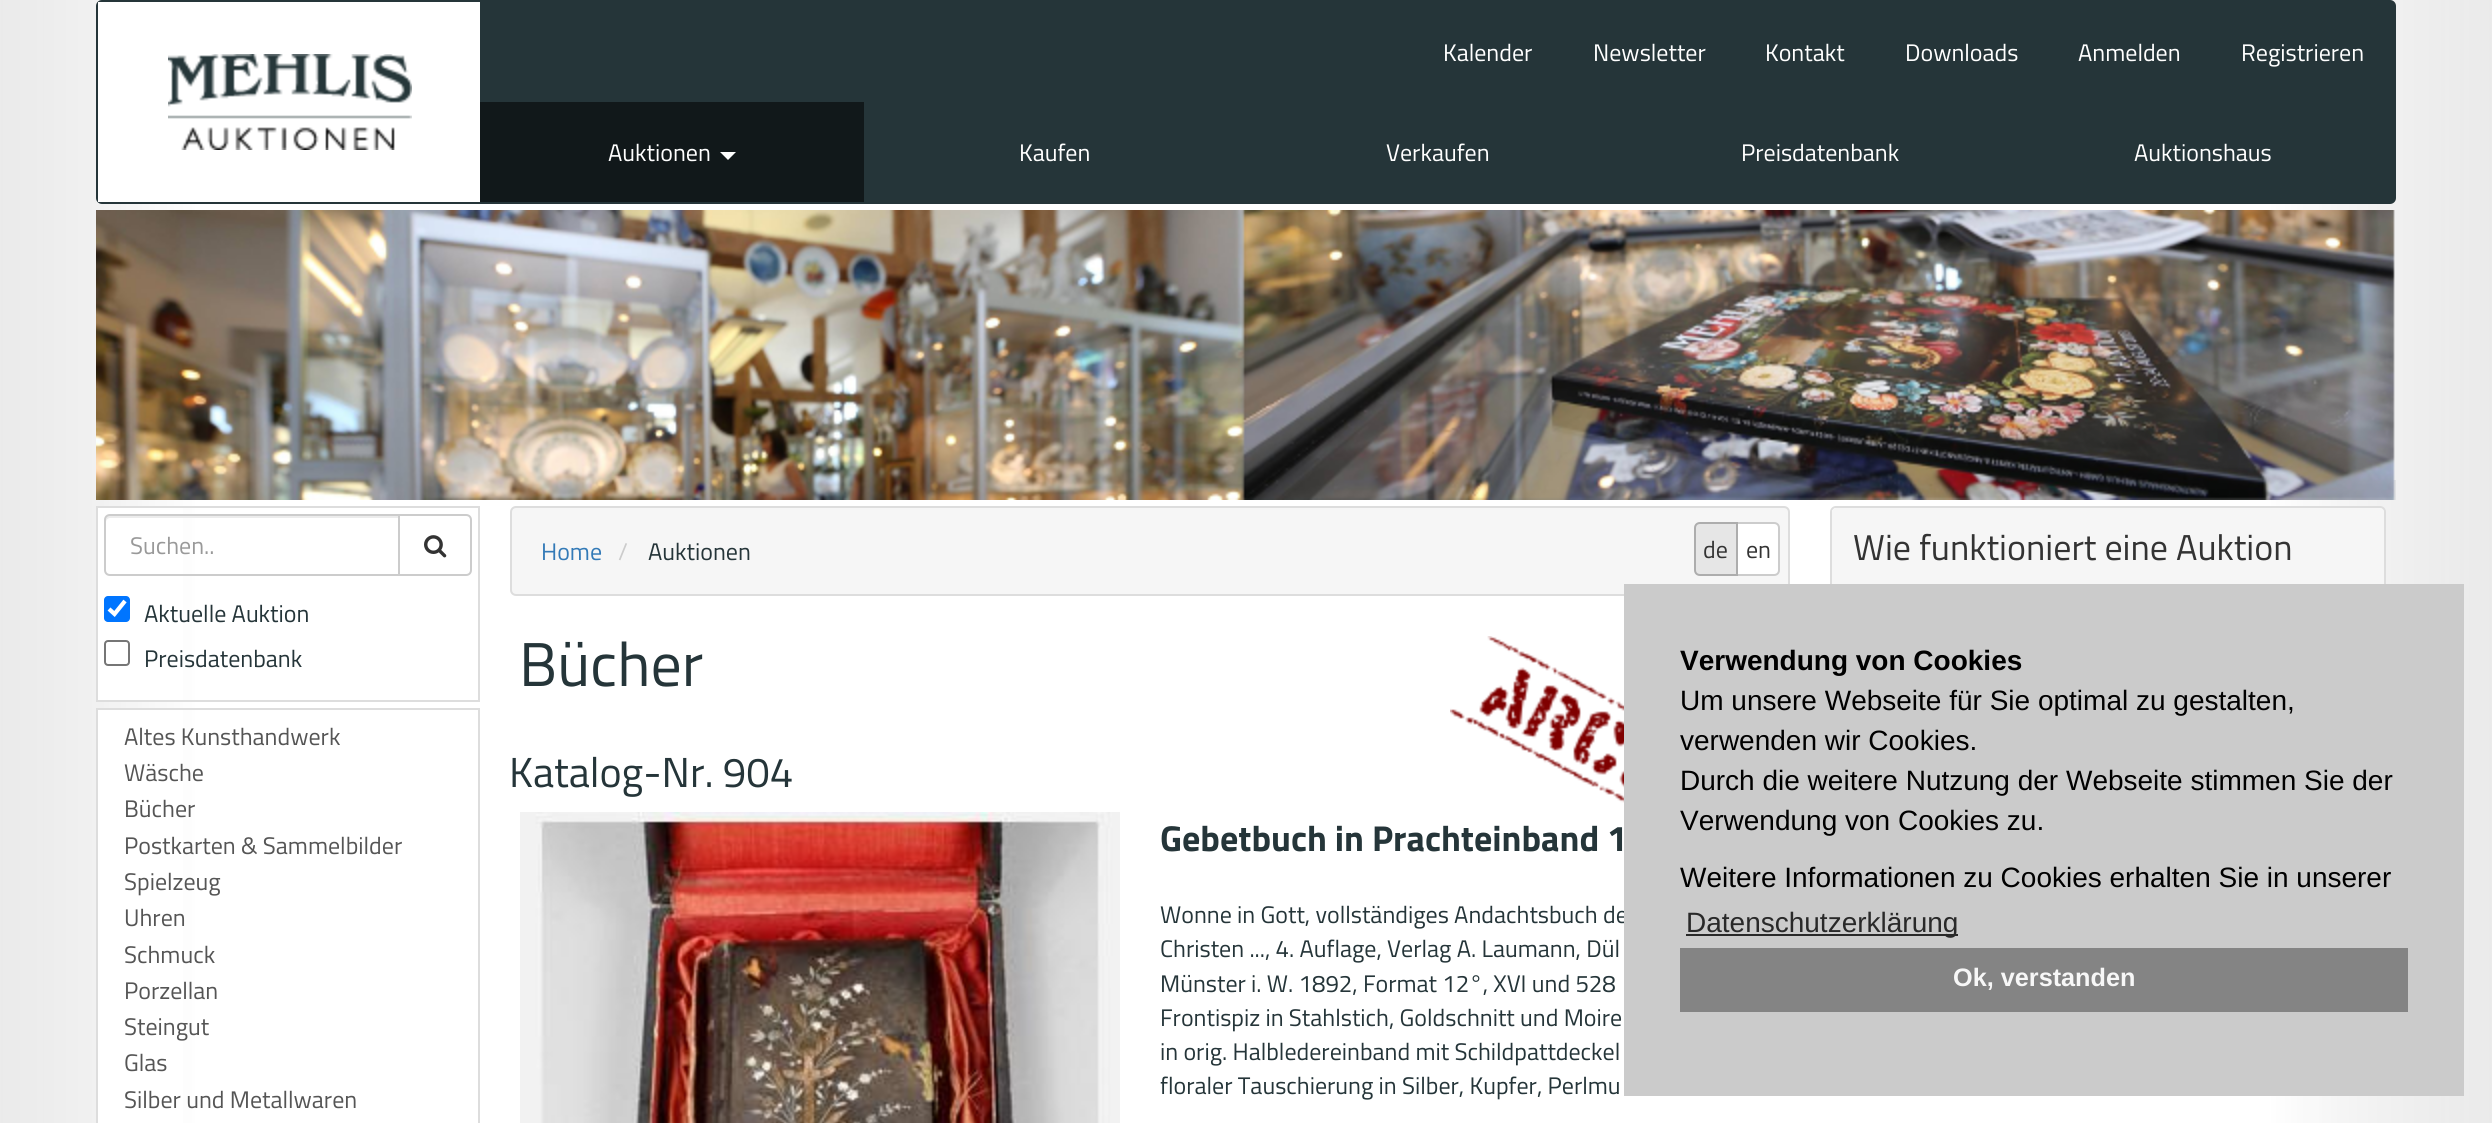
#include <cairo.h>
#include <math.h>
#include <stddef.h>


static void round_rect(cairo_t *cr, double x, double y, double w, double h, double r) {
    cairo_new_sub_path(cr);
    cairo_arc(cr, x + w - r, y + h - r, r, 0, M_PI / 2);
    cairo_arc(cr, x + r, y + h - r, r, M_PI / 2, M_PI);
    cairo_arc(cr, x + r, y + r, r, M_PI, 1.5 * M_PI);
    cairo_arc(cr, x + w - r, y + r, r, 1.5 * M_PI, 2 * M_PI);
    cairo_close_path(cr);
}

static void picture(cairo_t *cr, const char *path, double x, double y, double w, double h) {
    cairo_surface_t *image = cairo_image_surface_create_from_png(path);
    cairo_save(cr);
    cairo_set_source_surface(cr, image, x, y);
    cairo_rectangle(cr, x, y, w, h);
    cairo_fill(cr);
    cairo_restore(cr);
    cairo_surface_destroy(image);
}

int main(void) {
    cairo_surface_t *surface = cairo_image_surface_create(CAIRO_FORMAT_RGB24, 2492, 1123);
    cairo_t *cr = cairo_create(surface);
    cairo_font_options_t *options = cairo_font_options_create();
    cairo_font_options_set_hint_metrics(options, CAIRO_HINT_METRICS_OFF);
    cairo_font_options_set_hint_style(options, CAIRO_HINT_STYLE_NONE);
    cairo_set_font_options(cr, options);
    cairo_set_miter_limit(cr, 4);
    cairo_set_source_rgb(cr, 1, 1, 1);
    cairo_paint(cr);
    picture(cr, "img1.png", 0, 0, 2492, 1123);
    cairo_set_source_rgb(cr, 0.145, 0.208, 0.224);
    round_rect(cr, 96, 0, 2300, 204, 6);
    cairo_fill(cr);
    cairo_set_source_rgb(cr, 1, 1, 1);
    cairo_rectangle(cr, 98, 2, 382, 200);
    cairo_fill(cr);
    picture(cr, "img2.png", 168, 54, 244, 96);
    cairo_select_font_face(cr, "Titillium Web", CAIRO_FONT_SLANT_NORMAL, CAIRO_FONT_WEIGHT_NORMAL);
    cairo_set_font_size(cr, 24);
    cairo_move_to(cr, 1443, 61);
    cairo_show_text(cr, "Kalender");
    cairo_move_to(cr, 1593, 61);
    cairo_show_text(cr, "Newsletter");
    cairo_move_to(cr, 1765, 61);
    cairo_show_text(cr, "Kontakt");
    cairo_move_to(cr, 1905, 61);
    cairo_show_text(cr, "Downloads");
    cairo_move_to(cr, 2078, 61);
    cairo_show_text(cr, "Anmelden");
    cairo_move_to(cr, 2241, 61);
    cairo_show_text(cr, "Registrieren");
    cairo_set_source_rgb(cr, 0.067, 0.094, 0.102);
    cairo_rectangle(cr, 480, 102, 384, 100);
    cairo_fill(cr);
    cairo_set_source_rgb(cr, 1, 1, 1);
    cairo_move_to(cr, 608, 161);
    cairo_show_text(cr, "Auktionen");
    cairo_new_path(cr);
    cairo_move_to(cr, 720, 152);
    cairo_line_to(cr, 736, 152);
    cairo_line_to(cr, 728, 160);
    cairo_close_path(cr);
    cairo_fill(cr);
    cairo_move_to(cr, 1019, 161);
    cairo_show_text(cr, "Kaufen");
    cairo_move_to(cr, 1386, 161);
    cairo_show_text(cr, "Verkaufen");
    cairo_move_to(cr, 1741, 161);
    cairo_show_text(cr, "Preisdatenbank");
    cairo_move_to(cr, 2134, 161);
    cairo_show_text(cr, "Auktionshaus");
    picture(cr, "img3.png", 1244, 480, 1152, 20);
    picture(cr, "img4.png", 96, 210, 2299, 290);
    cairo_rectangle(cr, 98, 508, 85, 192);
    cairo_fill(cr);
    cairo_rectangle(cr, 97, 507, 382, 194);
    cairo_set_source_rgb(cr, 0.867, 0.867, 0.867);
    cairo_stroke(cr);
    cairo_set_source_rgb(cr, 0.925, 0.925, 0.925);
    cairo_new_path(cr);
    cairo_move_to(cr, 110, 518);
    cairo_line_to(cr, 398, 518);
    cairo_line_to(cr, 398, 516);
    cairo_line_to(cr, 108, 516);
    cairo_curve_to(cr, 106, 517, 106, 520, 106, 522);
    cairo_curve_to(cr, 106, 520, 108, 518, 110, 518);
    cairo_close_path(cr);
    cairo_fill(cr);
    cairo_new_path(cr);
    cairo_move_to(cr, 110, 515);
    cairo_line_to(cr, 399, 515);
    cairo_line_to(cr, 399, 575);
    cairo_line_to(cr, 110, 575);
    cairo_curve_to(cr, 107, 575, 105, 573, 105, 570);
    cairo_line_to(cr, 105, 520);
    cairo_curve_to(cr, 105, 517, 107, 515, 110, 515);
    cairo_close_path(cr);
    cairo_set_source_rgb(cr, 0.8, 0.8, 0.8);
    cairo_stroke(cr);
    cairo_set_source_rgb(cr, 0.6, 0.6, 0.6);
    cairo_move_to(cr, 130, 554);
    cairo_show_text(cr, "Suchen..");
    cairo_set_source_rgb(cr, 1, 1, 1);
    cairo_new_path(cr);
    cairo_move_to(cr, 399, 515);
    cairo_line_to(cr, 466, 515);
    cairo_curve_to(cr, 469, 515, 471, 517, 471, 520);
    cairo_line_to(cr, 471, 570);
    cairo_curve_to(cr, 471, 573, 469, 575, 466, 575);
    cairo_line_to(cr, 399, 575);
    cairo_close_path(cr);
    cairo_fill_preserve(cr);
    cairo_set_source_rgb(cr, 0.8, 0.8, 0.8);
    cairo_stroke(cr);
    picture(cr, "img5.png", 424, 535, 23, 23);
    cairo_set_source_rgb(cr, 0, 0.459, 1);
    round_rect(cr, 104, 596, 26, 26, 4);
    cairo_fill(cr);
    cairo_new_path(cr);
    cairo_move_to(cr, 109, 609);
    cairo_line_to(cr, 114.5, 614);
    cairo_line_to(cr, 125, 601);
    cairo_set_source_rgb(cr, 1, 1, 1);
    cairo_set_line_width(cr, 4.2);
    cairo_stroke(cr);
    cairo_set_source_rgb(cr, 0.145, 0.208, 0.224);
    cairo_move_to(cr, 144, 622);
    cairo_show_text(cr, "Aktuelle Auktion");
    round_rect(cr, 105, 641, 24, 24, 3);
    cairo_set_source_rgb(cr, 0.463, 0.463, 0.463);
    cairo_set_line_width(cr, 2);
    cairo_stroke(cr);
    cairo_set_source_rgb(cr, 0.145, 0.208, 0.224);
    cairo_move_to(cr, 144, 667);
    cairo_show_text(cr, "Preisdatenbank");
    cairo_set_source_rgb(cr, 1, 1, 1);
    cairo_rectangle(cr, 98, 710, 85, 413);
    cairo_fill(cr);
    cairo_rectangle(cr, 97, 709, 382, 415);
    cairo_set_source_rgb(cr, 0.867, 0.867, 0.867);
    cairo_stroke(cr);
    cairo_set_source_rgb(cr, 0.333, 0.333, 0.333);
    cairo_move_to(cr, 124, 745);
    cairo_show_text(cr, "Altes Kunsthandwerk");
    cairo_move_to(cr, 124, 781);
    cairo_show_text(cr, "Wäsche");
    cairo_move_to(cr, 124, 817);
    cairo_show_text(cr, "Bücher");
    cairo_move_to(cr, 124, 854);
    cairo_show_text(cr, "Postkarten & Sammelbilder");
    cairo_move_to(cr, 124, 890);
    cairo_show_text(cr, "Spielzeug");
    cairo_move_to(cr, 124, 926);
    cairo_show_text(cr, "Uhren");
    cairo_move_to(cr, 124, 963);
    cairo_show_text(cr, "Schmuck");
    cairo_move_to(cr, 124, 999);
    cairo_show_text(cr, "Porzellan");
    cairo_move_to(cr, 124, 1035);
    cairo_show_text(cr, "Steingut");
    cairo_move_to(cr, 124, 1071);
    cairo_show_text(cr, "Glas");
    cairo_move_to(cr, 124, 1108);
    cairo_show_text(cr, "Silber und Metallwaren");
    cairo_set_source_rgb(cr, 0.961, 0.961, 0.961);
    round_rect(cr, 511, 507, 1278, 88, 5);
    cairo_fill_preserve(cr);
    cairo_set_source_rgb(cr, 0.867, 0.867, 0.867);
    cairo_stroke(cr);
    cairo_set_source_rgb(cr, 0.2, 0.478, 0.718);
    cairo_move_to(cr, 541, 560);
    cairo_show_text(cr, "Home");
    cairo_set_source_rgb(cr, 0.8, 0.8, 0.8);
    cairo_move_to(cr, 618, 560);
    cairo_show_text(cr, "/");
    cairo_set_source_rgb(cr, 0.145, 0.208, 0.224);
    cairo_move_to(cr, 648, 560);
    cairo_show_text(cr, "Auktionen");
    cairo_set_source_rgb(cr, 1, 1, 1);
    cairo_new_path(cr);
    cairo_move_to(cr, 1737, 523);
    cairo_line_to(cr, 1774, 523);
    cairo_curve_to(cr, 1777, 523, 1779, 525, 1779, 528);
    cairo_line_to(cr, 1779, 570);
    cairo_curve_to(cr, 1779, 573, 1777, 575, 1774, 575);
    cairo_line_to(cr, 1737, 575);
    cairo_close_path(cr);
    cairo_fill_preserve(cr);
    cairo_set_source_rgb(cr, 0.8, 0.8, 0.8);
    cairo_stroke(cr);
    cairo_set_source_rgb(cr, 0.902, 0.902, 0.902);
    cairo_new_path(cr);
    cairo_move_to(cr, 1700, 523);
    cairo_line_to(cr, 1737, 523);
    cairo_line_to(cr, 1737, 575);
    cairo_line_to(cr, 1700, 575);
    cairo_curve_to(cr, 1697, 575, 1695, 573, 1695, 570);
    cairo_line_to(cr, 1695, 528);
    cairo_curve_to(cr, 1695, 525, 1697, 523, 1700, 523);
    cairo_close_path(cr);
    cairo_fill_preserve(cr);
    cairo_set_source_rgb(cr, 0.678, 0.678, 0.678);
    cairo_stroke(cr);
    cairo_set_source_rgb(cr, 0.2, 0.2, 0.2);
    cairo_move_to(cr, 1703, 558);
    cairo_show_text(cr, "de");
    cairo_move_to(cr, 1746, 558);
    cairo_show_text(cr, "en");
    cairo_set_font_size(cr, 62);
    cairo_set_source_rgb(cr, 0.145, 0.208, 0.224);
    cairo_move_to(cr, 519, 686);
    cairo_show_text(cr, "Bücher");
    picture(cr, "img6.png", 1450, 636, 174, 167);
    cairo_set_font_size(cr, 42);
    cairo_move_to(cr, 509, 787);
    cairo_show_text(cr, "Katalog-Nr. 904");
    picture(cr, "img7.png", 520, 812, 600, 311);
    cairo_select_font_face(cr, "Titillium Web", CAIRO_FONT_SLANT_NORMAL, CAIRO_FONT_WEIGHT_BOLD);
    cairo_set_font_size(cr, 36);
    cairo_move_to(cr, 1160, 851);
    cairo_show_text(cr, "Gebetbuch in Prachteinband 1");
    cairo_select_font_face(cr, "Titillium Web", CAIRO_FONT_SLANT_NORMAL, CAIRO_FONT_WEIGHT_NORMAL);
    cairo_set_font_size(cr, 24);
    cairo_move_to(cr, 1160, 923);
    cairo_show_text(cr, "Wonne in Gott, vollständiges Andachtsbuch de");
    cairo_move_to(cr, 1160, 957);
    cairo_show_text(cr, "Christen ..., 4. Auflage, Verlag A. Laumann, Dül");
    cairo_move_to(cr, 1160, 992);
    cairo_show_text(cr, "Münster i. W. 1892, Format 12°, XVI und 528");
    cairo_move_to(cr, 1160, 1026);
    cairo_show_text(cr, "Frontispiz in Stahlstich, Goldschnitt und Moire");
    cairo_move_to(cr, 1160, 1060);
    cairo_show_text(cr, "in orig. Halbledereinband mit Schildpattdeckel");
    cairo_move_to(cr, 1160, 1094);
    cairo_show_text(cr, "floraler Tauschierung in Silber, Kupfer, Perlmu");
    round_rect(cr, 1831, 507, 554, 428, 5);
    cairo_set_source_rgb(cr, 0.867, 0.867, 0.867);
    cairo_stroke(cr);
    cairo_set_source_rgb(cr, 0.961, 0.961, 0.961);
    cairo_new_path(cr);
    cairo_move_to(cr, 1836, 508);
    cairo_line_to(cr, 2380, 508);
    cairo_curve_to(cr, 2382, 508, 2384, 510, 2384, 512);
    cairo_line_to(cr, 2384, 596);
    cairo_line_to(cr, 1832, 596);
    cairo_line_to(cr, 1832, 512);
    cairo_curve_to(cr, 1832, 510, 1834, 508, 1836, 508);
    cairo_close_path(cr);
    cairo_fill(cr);
    cairo_set_font_size(cr, 36);
    cairo_set_source_rgb(cr, 0.2, 0.2, 0.2);
    cairo_move_to(cr, 1853, 560);
    cairo_show_text(cr, "Wie funktioniert eine Auktion");
    cairo_set_source_rgb(cr, 0.796, 0.796, 0.796);
    cairo_rectangle(cr, 1624, 584, 840, 512);
    cairo_fill(cr);
    cairo_select_font_face(cr, "Liberation Sans", CAIRO_FONT_SLANT_NORMAL, CAIRO_FONT_WEIGHT_BOLD);
    cairo_set_font_size(cr, 28);
    cairo_set_source_rgb(cr, 0, 0, 0);
    cairo_move_to(cr, 1680, 670);
    cairo_show_text(cr, "Verwendung von Cookies");
    cairo_select_font_face(cr, "Liberation Sans", CAIRO_FONT_SLANT_NORMAL, CAIRO_FONT_WEIGHT_NORMAL);
    cairo_move_to(cr, 1680, 710);
    cairo_show_text(cr, "Um unsere Webseite für Sie optimal zu gestalten,");
    cairo_move_to(cr, 1680, 750);
    cairo_show_text(cr, "verwenden wir Cookies.");
    cairo_move_to(cr, 1680, 790);
    cairo_show_text(cr, "Durch die weitere Nutzung der Webseite stimmen Sie der");
    cairo_move_to(cr, 1680, 830);
    cairo_show_text(cr, "Verwendung von Cookies zu.");
    cairo_move_to(cr, 1680, 887);
    cairo_show_text(cr, "Weitere Informationen zu Cookies erhalten Sie in unserer");
    cairo_set_source_rgb(cr, 0.161, 0.161, 0.161);
    cairo_rectangle(cr, 1686, 934, 272, 2);
    cairo_fill(cr);
    cairo_move_to(cr, 1686, 932);
    cairo_show_text(cr, "Datenschutzerklärung");
    cairo_set_source_rgb(cr, 0.518, 0.518, 0.518);
    cairo_rectangle(cr, 1680, 948, 728, 64);
    cairo_fill(cr);
    cairo_select_font_face(cr, "Liberation Sans", CAIRO_FONT_SLANT_NORMAL, CAIRO_FONT_WEIGHT_BOLD);
    cairo_set_font_size(cr, 25.25);
    cairo_set_source_rgb(cr, 0.965, 0.965, 0.965);
    cairo_move_to(cr, 1953, 986);
    cairo_show_text(cr, "Ok, verstanden");
    cairo_surface_write_to_png(surface, "page.png");
    cairo_font_options_destroy(options);
    cairo_destroy(cr);
    cairo_surface_destroy(surface);
    return 0;
}
